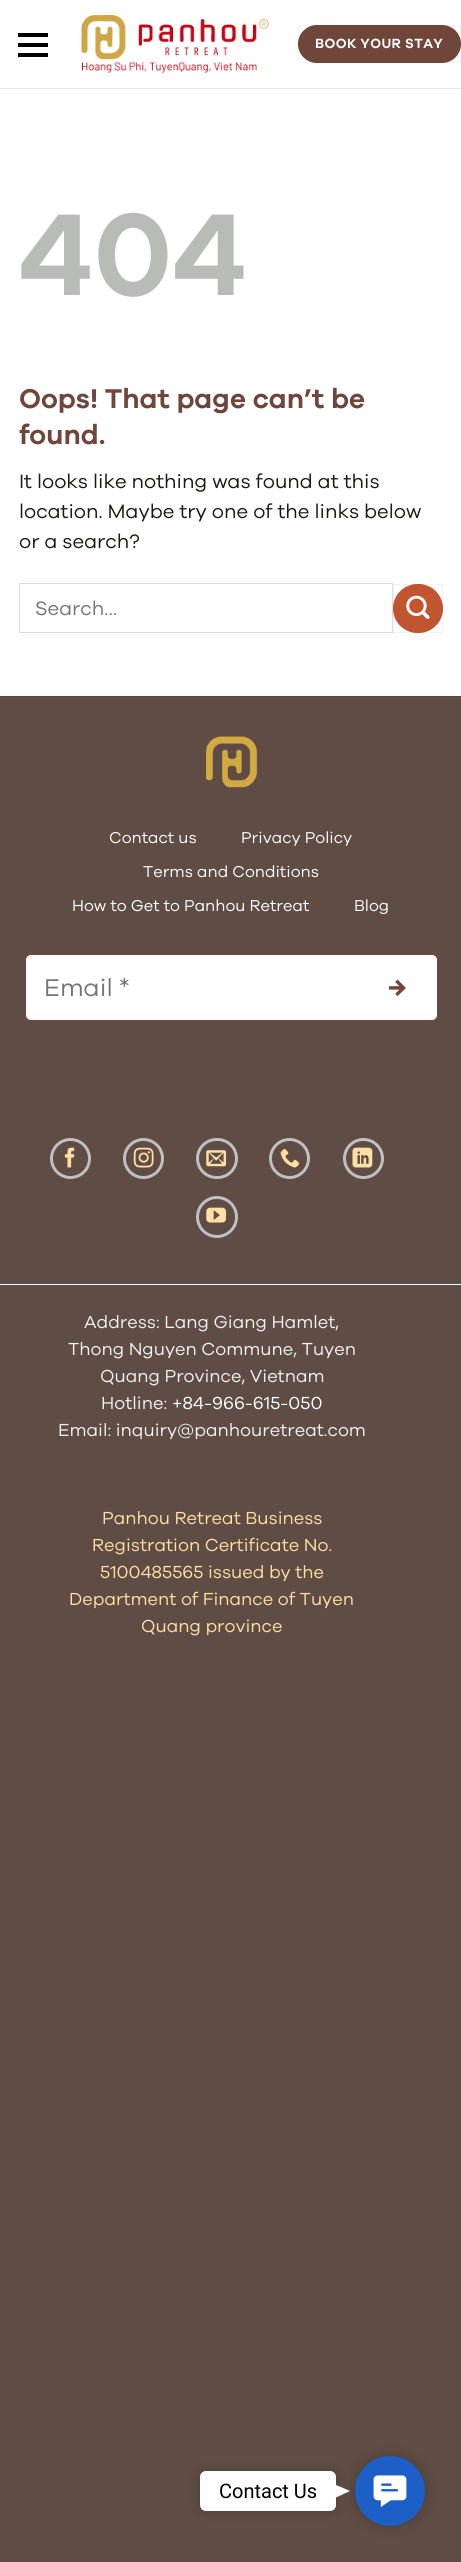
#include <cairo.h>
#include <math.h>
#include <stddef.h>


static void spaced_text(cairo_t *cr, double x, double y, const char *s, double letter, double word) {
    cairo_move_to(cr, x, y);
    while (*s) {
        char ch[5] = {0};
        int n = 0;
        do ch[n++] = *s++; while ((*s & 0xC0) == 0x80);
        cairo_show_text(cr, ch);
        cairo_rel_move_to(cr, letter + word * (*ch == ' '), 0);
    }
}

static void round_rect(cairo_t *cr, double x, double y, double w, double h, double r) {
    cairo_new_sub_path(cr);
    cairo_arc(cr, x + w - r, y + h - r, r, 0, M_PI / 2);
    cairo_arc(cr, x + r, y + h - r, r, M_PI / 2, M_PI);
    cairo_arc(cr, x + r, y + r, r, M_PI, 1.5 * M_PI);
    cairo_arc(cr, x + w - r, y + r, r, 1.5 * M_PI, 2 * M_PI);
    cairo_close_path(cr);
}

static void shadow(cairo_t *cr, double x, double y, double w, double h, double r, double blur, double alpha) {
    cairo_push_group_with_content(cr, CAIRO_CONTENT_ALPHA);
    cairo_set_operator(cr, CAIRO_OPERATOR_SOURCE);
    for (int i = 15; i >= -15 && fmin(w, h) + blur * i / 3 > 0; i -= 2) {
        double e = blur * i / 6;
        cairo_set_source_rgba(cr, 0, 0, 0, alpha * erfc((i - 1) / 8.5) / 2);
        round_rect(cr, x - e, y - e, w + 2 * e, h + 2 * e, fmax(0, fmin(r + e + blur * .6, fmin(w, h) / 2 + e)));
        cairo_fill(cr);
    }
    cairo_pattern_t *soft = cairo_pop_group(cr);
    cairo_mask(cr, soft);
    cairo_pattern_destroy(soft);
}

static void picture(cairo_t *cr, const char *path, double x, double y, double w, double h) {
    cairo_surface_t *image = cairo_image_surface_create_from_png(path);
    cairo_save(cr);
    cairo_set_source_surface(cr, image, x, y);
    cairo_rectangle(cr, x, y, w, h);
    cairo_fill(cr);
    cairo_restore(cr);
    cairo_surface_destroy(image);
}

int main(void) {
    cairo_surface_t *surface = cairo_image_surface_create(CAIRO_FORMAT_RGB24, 461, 2562);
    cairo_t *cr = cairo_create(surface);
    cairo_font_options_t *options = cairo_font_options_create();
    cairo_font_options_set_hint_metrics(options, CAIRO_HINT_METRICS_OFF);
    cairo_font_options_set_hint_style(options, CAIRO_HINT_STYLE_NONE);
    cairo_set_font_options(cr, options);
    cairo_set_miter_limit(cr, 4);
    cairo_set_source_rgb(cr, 0.373, 0.302, 0.271);
    cairo_paint(cr);
    cairo_set_source_rgb(cr, 1, 1, 1);
    cairo_rectangle(cr, 0, 0, 461, 696);
    cairo_fill(cr);
    cairo_set_source_rgb(cr, 0, 0, 0);
    cairo_rectangle(cr, 18, 43, 30, 4);
    cairo_fill(cr);
    cairo_rectangle(cr, 18, 33, 30, 4);
    cairo_fill(cr);
    cairo_rectangle(cr, 18, 53, 30, 4);
    cairo_fill(cr);
    picture(cr, "img1.png", 81, 15, 188, 58);
    cairo_set_source_rgb(cr, 0.439, 0.275, 0.227);
    round_rect(cr, 298, 25, 163, 38, 19);
    cairo_fill(cr);
    cairo_rectangle(cr, 298.5, 25.5, 162, 37);
    cairo_set_source_rgba(cr, 0, 0, 0, 0.05);
    cairo_set_line_width(cr, 1);
    cairo_stroke(cr);
    cairo_select_font_face(cr, "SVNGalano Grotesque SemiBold", CAIRO_FONT_SLANT_NORMAL, CAIRO_FONT_WEIGHT_NORMAL);
    cairo_set_font_size(cr, 13.75);
    cairo_set_source_rgb(cr, 1, 1, 1);
    spaced_text(cr, 315, 48, "BOOK YOUR STAY", 0.4, 0);
    cairo_set_source_rgb(cr, 0.91, 0.91, 0.906);
    cairo_rectangle(cr, 0, 88, 461, 1);
    cairo_fill(cr);
    cairo_set_font_size(cr, 120);
    cairo_set_source_rgb(cr, 0.725, 0.733, 0.714);
    cairo_move_to(cr, 19, 295);
    cairo_show_text(cr, "404");
    cairo_set_font_size(cr, 28);
    cairo_set_source_rgb(cr, 0.439, 0.275, 0.227);
    cairo_move_to(cr, 19, 408);
    cairo_show_text(cr, "Oops! That page can’t be");
    cairo_move_to(cr, 19, 444);
    cairo_show_text(cr, "found.");
    cairo_select_font_face(cr, "SVNGalano Grotesque", CAIRO_FONT_SLANT_NORMAL, CAIRO_FONT_WEIGHT_NORMAL);
    cairo_set_font_size(cr, 20);
    cairo_set_source_rgb(cr, 0.09, 0.106, 0.039);
    cairo_move_to(cr, 19, 488);
    cairo_show_text(cr, "It looks like nothing was found at this");
    cairo_move_to(cr, 19, 518);
    cairo_show_text(cr, "location. Maybe try one of the links below");
    cairo_move_to(cr, 19, 548);
    cairo_show_text(cr, "or a search?");
    cairo_rectangle(cr, 19.5, 583.5, 373, 49);
    cairo_set_source_rgb(cr, 0.867, 0.867, 0.867);
    cairo_stroke(cr);
    cairo_set_source_rgb(cr, 0.459, 0.459, 0.459);
    cairo_move_to(cr, 35, 615);
    cairo_show_text(cr, "Search…");
    cairo_set_source_rgb(cr, 0.753, 0.333, 0.188);
    round_rect(cr, 393, 584, 50, 49, 24.5);
    cairo_fill(cr);
    cairo_rectangle(cr, 393.5, 584.5, 49, 48);
    cairo_set_source_rgba(cr, 0, 0, 0, 0.05);
    cairo_stroke(cr);
    picture(cr, "img2.png", 406, 595, 24, 24);
    cairo_set_source_rgb(cr, 0.353, 0.286, 0.259);
    cairo_rectangle(cr, 0, 696, 461, 1);
    cairo_fill(cr);
    picture(cr, "img3.png", 206, 736, 52, 52);
    cairo_set_font_size(cr, 16.25);
    cairo_set_source_rgb(cr, 1, 1, 1);
    cairo_move_to(cr, 109, 843);
    cairo_show_text(cr, "Contact us");
    cairo_move_to(cr, 241, 843);
    cairo_show_text(cr, "Privacy Policy");
    cairo_move_to(cr, 143, 877);
    cairo_show_text(cr, "Terms and Conditions");
    cairo_move_to(cr, 72, 911);
    cairo_show_text(cr, "How to Get to Panhou Retreat");
    cairo_move_to(cr, 354, 911);
    cairo_show_text(cr, "Blog");
    round_rect(cr, 25.5, 954.5, 412, 66, 5.5);
    cairo_fill_preserve(cr);
    cairo_set_source_rgb(cr, 0.439, 0.275, 0.227);
    cairo_stroke(cr);
    cairo_set_font_size(cr, 25);
    cairo_set_source_rgb(cr, 0.459, 0.459, 0.459);
    cairo_move_to(cr, 44, 996);
    cairo_show_text(cr, "Email *");
    cairo_select_font_face(cr, "SVNGalano Grotesque SemiBold", CAIRO_FONT_SLANT_NORMAL, CAIRO_FONT_WEIGHT_NORMAL);
    cairo_set_source_rgb(cr, 0.439, 0.275, 0.227);
    spaced_text(cr, 388, 996, "→", 1, 0);
    cairo_new_path(cr);
    cairo_arc(cr, 70.5, 1158.5, 19, 0, 2 * M_PI);
    cairo_set_source_rgb(cr, 0.753, 0.753, 0.753);
    cairo_set_line_width(cr, 3);
    cairo_stroke(cr);
    picture(cr, "img4.png", 64, 1147, 11, 21);
    cairo_arc(cr, 143.5, 1158.5, 19, 0, 2 * M_PI);
    cairo_stroke(cr);
    picture(cr, "img5.png", 133, 1147, 21, 21);
    round_rect(cr, 197.5, 1139.5, 39, 38, 19);
    cairo_stroke(cr);
    picture(cr, "img6.png", 206, 1150, 21, 17);
    cairo_arc(cr, 289.5, 1158.5, 19, 0, 2 * M_PI);
    cairo_stroke(cr);
    picture(cr, "img7.png", 280, 1149, 20, 19);
    cairo_arc(cr, 363.5, 1158.5, 19, 0, 2 * M_PI);
    cairo_stroke(cr);
    picture(cr, "img8.png", 352, 1147, 21, 21);
    cairo_arc(cr, 217, 1217, 19.5, 0, 2 * M_PI);
    cairo_stroke(cr);
    picture(cr, "img9.png", 206, 1207, 21, 16);
    cairo_set_source_rgb(cr, 1, 1, 1);
    cairo_rectangle(cr, 0, 1284, 461, 1);
    cairo_fill(cr);
    cairo_select_font_face(cr, "SVNGalano Grotesque", CAIRO_FONT_SLANT_NORMAL, CAIRO_FONT_WEIGHT_NORMAL);
    cairo_set_font_size(cr, 18);
    cairo_set_source_rgb(cr, 0.945, 0.945, 0.945);
    cairo_move_to(cr, 84, 1328);
    cairo_show_text(cr, "Address: Lang Giang Hamlet,");
    cairo_move_to(cr, 68, 1355);
    cairo_show_text(cr, "Thong Nguyen Commune, Tuyen");
    cairo_move_to(cr, 100, 1382);
    cairo_show_text(cr, "Quang Province, Vietnam");
    cairo_move_to(cr, 101, 1409);
    cairo_show_text(cr, "Hotline:");
    cairo_set_source_rgb(cr, 1, 1, 1);
    cairo_move_to(cr, 172, 1409);
    cairo_show_text(cr, "+84-966-615-050");
    cairo_set_source_rgb(cr, 0.945, 0.945, 0.945);
    cairo_move_to(cr, 58, 1436);
    cairo_show_text(cr, "Email: inquiry@panhouretreat.com");
    cairo_set_source_rgb(cr, 1, 0.875, 0.643);
    cairo_move_to(cr, 102, 1524);
    cairo_show_text(cr, "Panhou Retreat Business");
    cairo_move_to(cr, 92, 1551);
    cairo_show_text(cr, "Registration Certificate No.");
    cairo_move_to(cr, 100, 1578);
    cairo_show_text(cr, "5100485565 issued by the");
    cairo_move_to(cr, 69, 1605);
    cairo_show_text(cr, "Department of Finance of Tuyen");
    cairo_move_to(cr, 141, 1632);
    cairo_show_text(cr, "Quang province");
    cairo_set_source_rgb(cr, 0, 0, 0);
    shadow(cr, 200, 2471, 136, 40, 6, 6, 0.2);
    shadow(cr, 355, 2456, 70, 70, 35, 7.5, 0.2);
    cairo_set_source_rgb(cr, 1, 1, 1);
    round_rect(cr, 200, 2471, 136, 40, 6);
    cairo_fill(cr);
    cairo_select_font_face(cr, "Roboto", CAIRO_FONT_SLANT_NORMAL, CAIRO_FONT_WEIGHT_NORMAL);
    cairo_set_font_size(cr, 20);
    cairo_set_source_rgb(cr, 0, 0, 0);
    cairo_move_to(cr, 219, 2498);
    cairo_show_text(cr, "Contact Us");
    cairo_set_source_rgb(cr, 1, 1, 1);
    cairo_new_path(cr);
    cairo_move_to(cr, 336, 2497.5);
    cairo_line_to(cr, 336, 2485);
    cairo_line_to(cr, 350, 2491);
    cairo_close_path(cr);
    cairo_fill(cr);
    cairo_set_source_rgb(cr, 0.11, 0.373, 0.776);
    cairo_arc(cr, 390, 2491, 35, 0, 2 * M_PI);
    cairo_fill(cr);
    picture(cr, "img10.png", 373, 2475, 34, 32);
    cairo_surface_write_to_png(surface, "page.png");
    cairo_font_options_destroy(options);
    cairo_destroy(cr);
    cairo_surface_destroy(surface);
    return 0;
}
